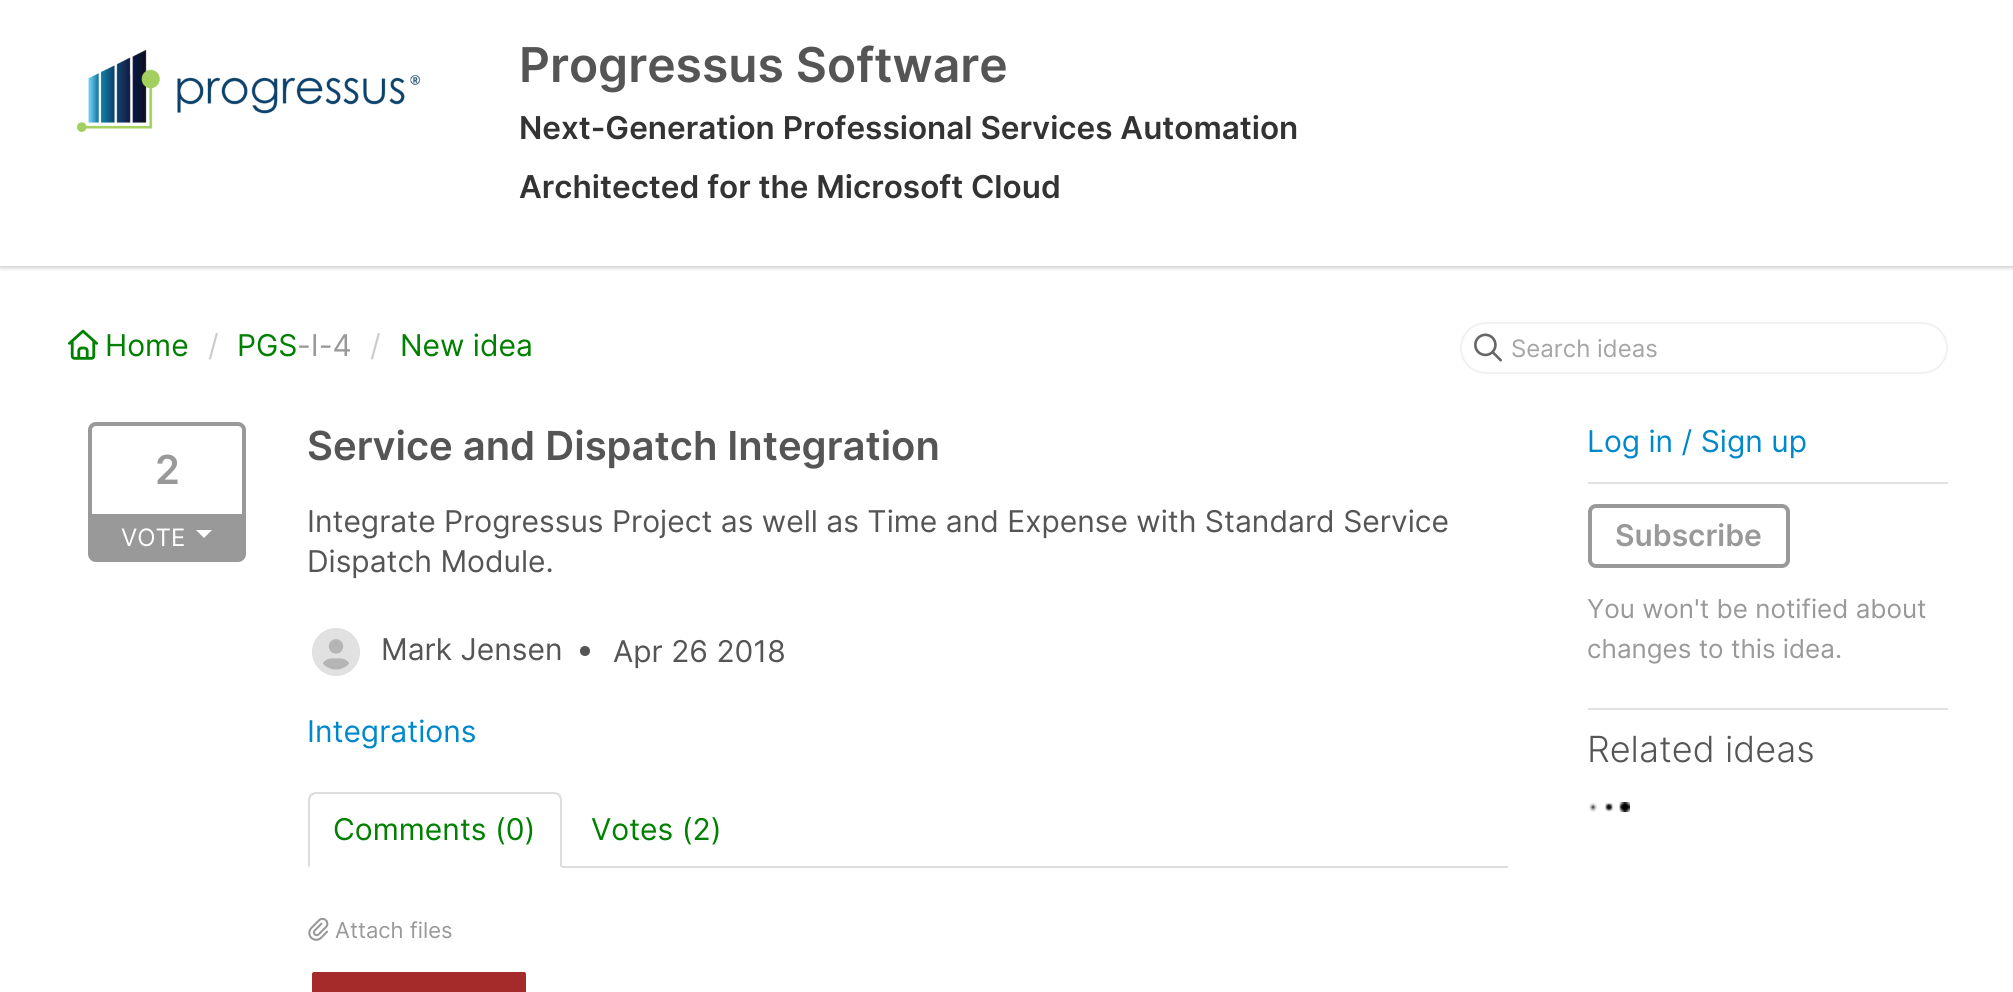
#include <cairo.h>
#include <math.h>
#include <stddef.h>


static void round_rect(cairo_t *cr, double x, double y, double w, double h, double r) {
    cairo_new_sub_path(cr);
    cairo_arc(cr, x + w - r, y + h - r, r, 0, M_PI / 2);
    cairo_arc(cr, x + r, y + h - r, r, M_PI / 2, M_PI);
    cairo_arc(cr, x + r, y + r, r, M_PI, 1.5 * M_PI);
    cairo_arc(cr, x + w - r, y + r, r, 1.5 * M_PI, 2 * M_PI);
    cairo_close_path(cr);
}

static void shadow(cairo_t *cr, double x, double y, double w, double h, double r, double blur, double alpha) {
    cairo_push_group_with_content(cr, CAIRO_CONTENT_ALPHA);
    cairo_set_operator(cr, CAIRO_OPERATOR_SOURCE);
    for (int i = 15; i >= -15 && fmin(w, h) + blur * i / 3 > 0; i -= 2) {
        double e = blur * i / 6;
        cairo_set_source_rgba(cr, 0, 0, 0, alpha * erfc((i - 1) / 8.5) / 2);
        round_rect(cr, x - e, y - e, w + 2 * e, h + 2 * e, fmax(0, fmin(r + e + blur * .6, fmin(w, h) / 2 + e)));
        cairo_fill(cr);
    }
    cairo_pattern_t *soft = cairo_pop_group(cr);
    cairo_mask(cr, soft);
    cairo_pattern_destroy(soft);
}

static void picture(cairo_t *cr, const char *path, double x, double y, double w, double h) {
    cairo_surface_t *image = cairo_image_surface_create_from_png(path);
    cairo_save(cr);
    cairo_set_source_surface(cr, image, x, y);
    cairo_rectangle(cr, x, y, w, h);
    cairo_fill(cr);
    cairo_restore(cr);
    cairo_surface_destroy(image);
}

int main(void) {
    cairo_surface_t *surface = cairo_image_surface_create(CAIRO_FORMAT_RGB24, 2013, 992);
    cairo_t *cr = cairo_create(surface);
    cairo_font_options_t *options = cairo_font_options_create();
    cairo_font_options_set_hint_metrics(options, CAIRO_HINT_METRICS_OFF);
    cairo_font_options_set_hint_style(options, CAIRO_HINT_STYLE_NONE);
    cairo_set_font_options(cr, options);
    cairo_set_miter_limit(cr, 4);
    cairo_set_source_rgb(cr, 1, 1, 1);
    cairo_paint(cr);
    cairo_save(cr);
    cairo_rectangle(cr, 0, 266, 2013, 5);
    cairo_clip(cr);
    cairo_set_source_rgb(cr, 0, 0, 0);
    shadow(cr, 0, 2, 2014, 266, 0, 2, 0.2);
    cairo_restore(cr);
    picture(cr, "img1.png", 76, 49, 345, 84);
    cairo_select_font_face(cr, "Inter SemiBold", CAIRO_FONT_SLANT_NORMAL, CAIRO_FONT_WEIGHT_NORMAL);
    cairo_set_font_size(cr, 48);
    cairo_set_source_rgb(cr, 0.333, 0.333, 0.333);
    cairo_move_to(cr, 519, 82);
    cairo_show_text(cr, "Progressus Software");
    cairo_set_font_size(cr, 31.5);
    cairo_set_source_rgb(cr, 0.2, 0.2, 0.2);
    cairo_move_to(cr, 519, 139);
    cairo_show_text(cr, "Next-Generation Professional Services Automation");
    cairo_move_to(cr, 519, 198);
    cairo_show_text(cr, "Architected for the Microsoft Cloud");
    picture(cr, "img2.png", 68, 329, 30, 31);
    cairo_select_font_face(cr, "Inter", CAIRO_FONT_SLANT_NORMAL, CAIRO_FONT_WEIGHT_NORMAL);
    cairo_set_font_size(cr, 30);
    cairo_set_source_rgb(cr, 0, 0.502, 0);
    cairo_move_to(cr, 105, 356);
    cairo_show_text(cr, "Home");
    cairo_set_source_rgb(cr, 0.8, 0.8, 0.8);
    cairo_move_to(cr, 208, 356);
    cairo_show_text(cr, "/");
    cairo_set_source_rgb(cr, 0, 0.502, 0);
    cairo_move_to(cr, 237, 356);
    cairo_show_text(cr, "PGS");
    cairo_set_source_rgb(cr, 0.6, 0.6, 0.6);
    cairo_move_to(cr, 297, 356);
    cairo_show_text(cr, "-I-4");
    cairo_set_source_rgb(cr, 0.8, 0.8, 0.8);
    cairo_move_to(cr, 370, 356);
    cairo_show_text(cr, "/");
    cairo_set_source_rgb(cr, 0, 0.502, 0);
    cairo_move_to(cr, 400, 356);
    cairo_show_text(cr, "New idea");
    round_rect(cr, 1461, 323, 486, 50, 25);
    cairo_set_source_rgb(cr, 0.945, 0.945, 0.945);
    cairo_stroke(cr);
    picture(cr, "img3.png", 1474, 333, 28, 29);
    cairo_set_font_size(cr, 24);
    cairo_set_source_rgb(cr, 0.647, 0.647, 0.647);
    cairo_move_to(cr, 1511, 357);
    cairo_show_text(cr, "Search ideas");
    round_rect(cr, 90, 424, 154, 136, 6);
    cairo_set_source_rgb(cr, 0.6, 0.6, 0.6);
    cairo_set_line_width(cr, 4);
    cairo_stroke(cr);
    cairo_select_font_face(cr, "Inter SemiBold", CAIRO_FONT_SLANT_NORMAL, CAIRO_FONT_WEIGHT_NORMAL);
    cairo_set_font_size(cr, 40);
    cairo_move_to(cr, 155, 484);
    cairo_show_text(cr, "2");
    cairo_rectangle(cr, 92, 514, 150, 44);
    cairo_fill(cr);
    cairo_select_font_face(cr, "Inter", CAIRO_FONT_SLANT_NORMAL, CAIRO_FONT_WEIGHT_NORMAL);
    cairo_set_font_size(cr, 24);
    cairo_set_source_rgb(cr, 1, 1, 1);
    cairo_move_to(cr, 121, 546);
    cairo_show_text(cr, "VOTE");
    cairo_new_path(cr);
    cairo_move_to(cr, 196, 530);
    cairo_line_to(cr, 212, 530);
    cairo_line_to(cr, 204, 538);
    cairo_close_path(cr);
    cairo_fill(cr);
    cairo_select_font_face(cr, "Inter SemiBold", CAIRO_FONT_SLANT_NORMAL, CAIRO_FONT_WEIGHT_NORMAL);
    cairo_set_font_size(cr, 40);
    cairo_set_source_rgb(cr, 0.333, 0.333, 0.333);
    cairo_move_to(cr, 307, 460);
    cairo_show_text(cr, "Service and Dispatch Integration");
    cairo_select_font_face(cr, "Inter", CAIRO_FONT_SLANT_NORMAL, CAIRO_FONT_WEIGHT_NORMAL);
    cairo_set_font_size(cr, 30);
    cairo_move_to(cr, 307, 532);
    cairo_show_text(cr, "Integrate Progressus Project as well as Time and Expense with Standard Service");
    cairo_move_to(cr, 307, 572);
    cairo_show_text(cr, "Dispatch Module.");
    picture(cr, "img4.png", 312, 628, 48, 48);
    cairo_move_to(cr, 381, 660);
    cairo_show_text(cr, "Mark Jensen");
    cairo_new_path(cr);
    cairo_arc(cr, 585, 651, 5, 0, 2 * M_PI);
    cairo_fill(cr);
    cairo_move_to(cr, 613, 662);
    cairo_show_text(cr, "Apr 26 2018");
    cairo_set_source_rgb(cr, 0, 0.533, 0.8);
    cairo_move_to(cr, 307, 742);
    cairo_show_text(cr, "Integrations");
    cairo_set_source_rgb(cr, 0.867, 0.867, 0.867);
    cairo_rectangle(cr, 562, 866, 946, 2);
    cairo_fill(cr);
    cairo_new_path(cr);
    cairo_move_to(cr, 316, 792);
    cairo_curve_to(cr, 314, 792, 312, 793, 310, 794);
    cairo_line_to(cr, 312, 796);
    cairo_curve_to(cr, 313, 795, 314, 794, 316, 794);
    cairo_line_to(cr, 554, 794);
    cairo_curve_to(cr, 556, 794, 557, 795, 558, 796);
    cairo_line_to(cr, 560, 794);
    cairo_curve_to(cr, 558, 793, 556, 792, 554, 792);
    cairo_close_path(cr);
    cairo_fill(cr);
    cairo_new_path(cr);
    cairo_move_to(cr, 562, 868);
    cairo_line_to(cr, 562, 800);
    cairo_curve_to(cr, 562, 798, 561, 796, 560, 794);
    cairo_line_to(cr, 558, 796);
    cairo_curve_to(cr, 559, 797, 560, 798, 560, 800);
    cairo_line_to(cr, 560, 866);
    cairo_close_path(cr);
    cairo_fill(cr);
    cairo_new_path(cr);
    cairo_move_to(cr, 308, 868);
    cairo_line_to(cr, 310, 866);
    cairo_line_to(cr, 310, 800);
    cairo_curve_to(cr, 310, 798, 311, 797, 312, 796);
    cairo_line_to(cr, 310, 794);
    cairo_curve_to(cr, 309, 796, 308, 798, 308, 800);
    cairo_close_path(cr);
    cairo_fill(cr);
    cairo_set_source_rgb(cr, 0, 0.502, 0);
    cairo_move_to(cr, 333, 840);
    cairo_show_text(cr, "Comments (0)");
    cairo_move_to(cr, 591, 840);
    cairo_show_text(cr, "Votes (2)");
    picture(cr, "img5.png", 308, 917, 21, 24);
    cairo_set_font_size(cr, 22);
    cairo_set_source_rgb(cr, 0.6, 0.6, 0.6);
    cairo_move_to(cr, 335, 938);
    cairo_show_text(cr, "Attach files");
    cairo_set_source_rgb(cr, 0.647, 0.165, 0.165);
    round_rect(cr, 310, 970, 218, 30, 4);
    cairo_fill_preserve(cr);
    cairo_set_source_rgb(cr, 1, 1, 1);
    cairo_stroke(cr);
    cairo_set_source_rgb(cr, 0.882, 0.882, 0.882);
    cairo_rectangle(cr, 1588, 482, 360, 2);
    cairo_fill(cr);
    cairo_set_font_size(cr, 30);
    cairo_set_source_rgb(cr, 0, 0.533, 0.8);
    cairo_move_to(cr, 1587, 452);
    cairo_show_text(cr, "Log in / Sign up");
    cairo_set_source_rgb(cr, 0.882, 0.882, 0.882);
    cairo_rectangle(cr, 1588, 708, 360, 2);
    cairo_fill(cr);
    round_rect(cr, 1590, 506, 198, 60, 6);
    cairo_set_source_rgb(cr, 0.6, 0.6, 0.6);
    cairo_stroke(cr);
    cairo_select_font_face(cr, "Inter SemiBold", CAIRO_FONT_SLANT_NORMAL, CAIRO_FONT_WEIGHT_NORMAL);
    cairo_move_to(cr, 1615, 546);
    cairo_show_text(cr, "Subscribe");
    cairo_select_font_face(cr, "Inter", CAIRO_FONT_SLANT_NORMAL, CAIRO_FONT_WEIGHT_NORMAL);
    cairo_set_font_size(cr, 26);
    cairo_move_to(cr, 1587, 618);
    cairo_show_text(cr, "You won't be notified about");
    cairo_move_to(cr, 1587, 658);
    cairo_show_text(cr, "changes to this idea.");
    cairo_select_font_face(cr, "Inter Light", CAIRO_FONT_SLANT_NORMAL, CAIRO_FONT_WEIGHT_NORMAL);
    cairo_set_font_size(cr, 36);
    cairo_set_source_rgb(cr, 0.333, 0.333, 0.333);
    cairo_move_to(cr, 1587, 762);
    cairo_show_text(cr, "Related ideas");
    picture(cr, "img6.png", 1588, 802, 42, 10);
    cairo_surface_write_to_png(surface, "page.png");
    cairo_font_options_destroy(options);
    cairo_destroy(cr);
    cairo_surface_destroy(surface);
    return 0;
}
